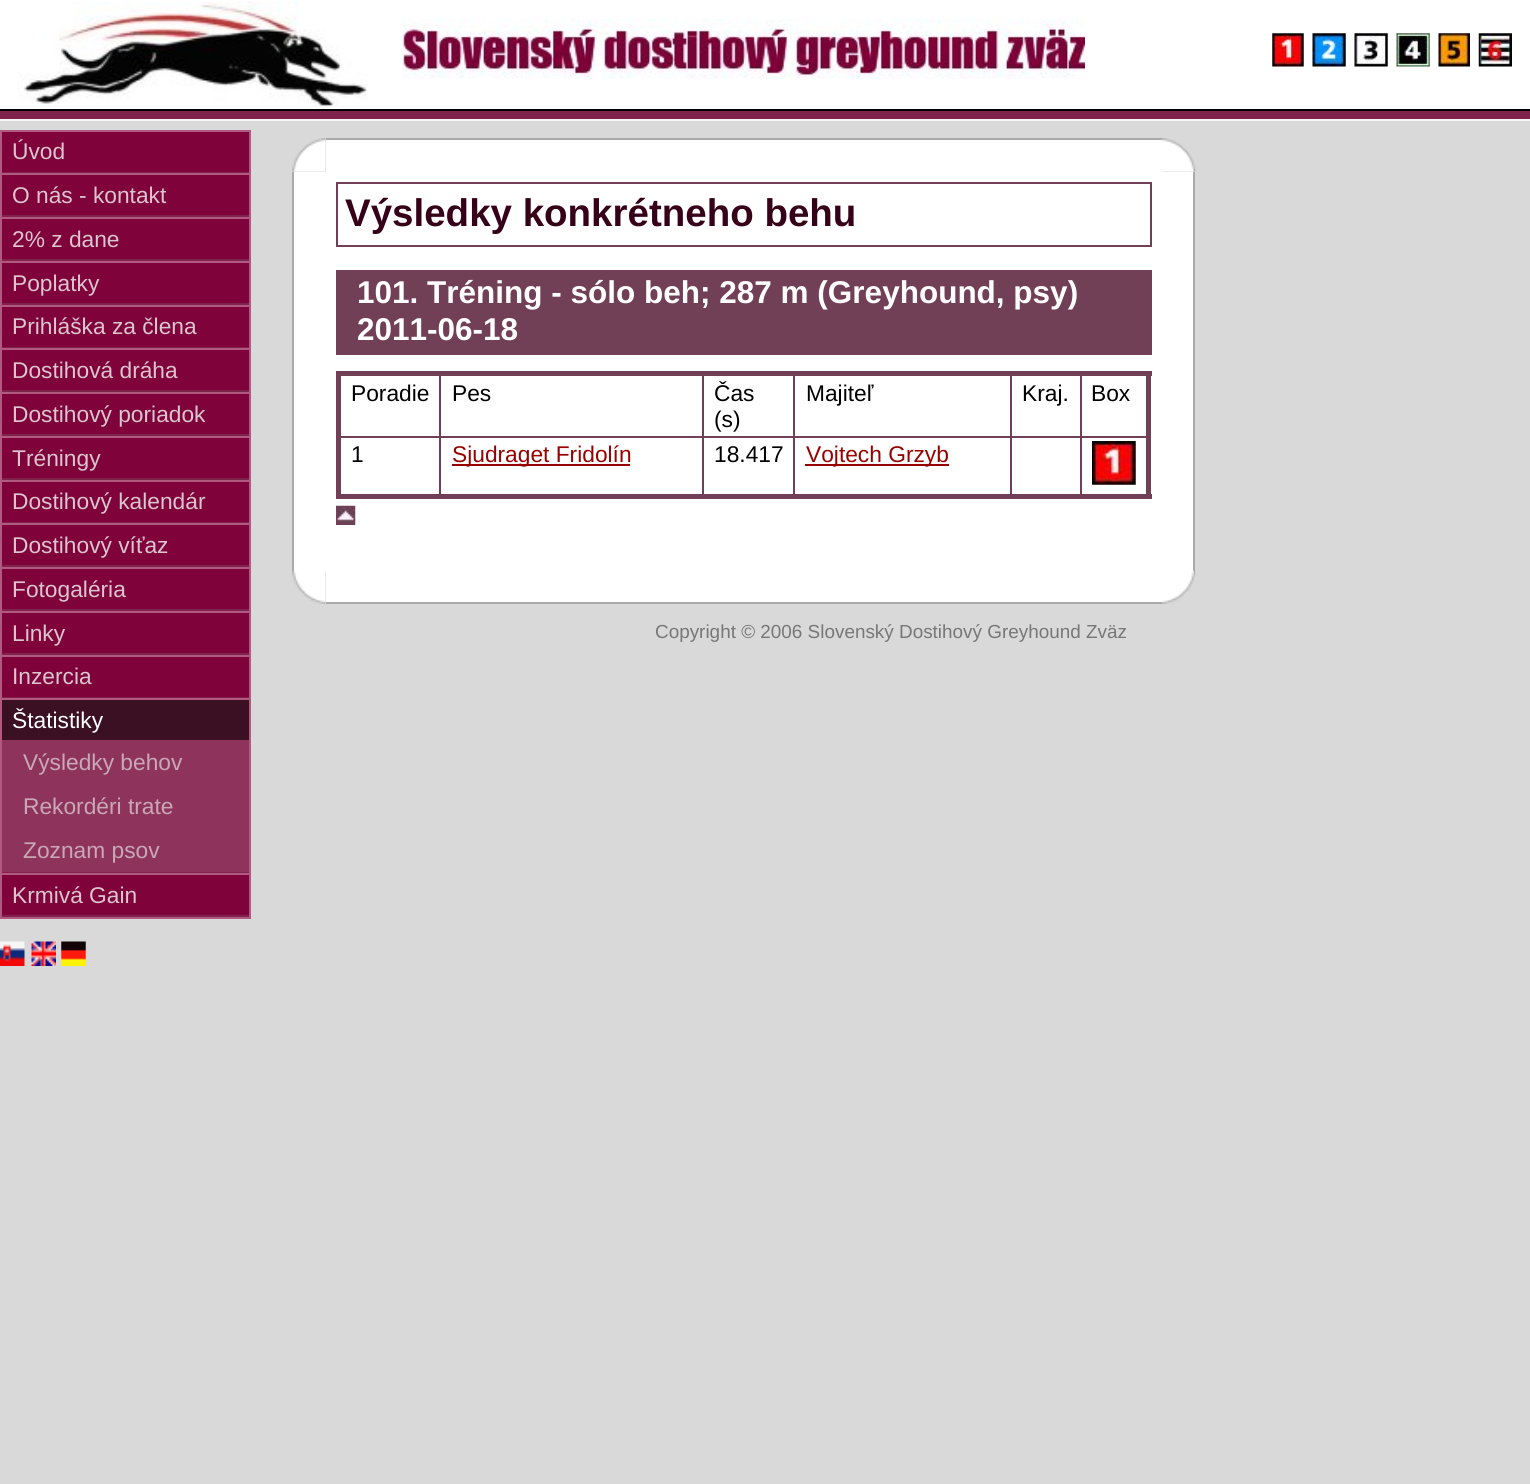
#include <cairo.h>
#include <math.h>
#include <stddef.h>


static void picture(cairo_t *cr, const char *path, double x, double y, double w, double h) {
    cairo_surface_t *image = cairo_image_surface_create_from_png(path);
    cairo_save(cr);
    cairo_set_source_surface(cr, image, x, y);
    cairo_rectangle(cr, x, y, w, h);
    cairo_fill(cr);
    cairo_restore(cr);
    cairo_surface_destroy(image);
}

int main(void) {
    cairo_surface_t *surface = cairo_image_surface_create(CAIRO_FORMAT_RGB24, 1530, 1484);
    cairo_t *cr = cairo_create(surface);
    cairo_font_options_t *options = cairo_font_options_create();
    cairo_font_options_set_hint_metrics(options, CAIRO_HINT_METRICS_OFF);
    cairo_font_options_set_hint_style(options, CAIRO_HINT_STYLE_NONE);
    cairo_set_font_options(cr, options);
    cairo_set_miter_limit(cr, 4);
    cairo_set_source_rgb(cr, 0.851, 0.851, 0.851);
    cairo_paint(cr);
    cairo_set_source_rgb(cr, 1, 1, 1);
    cairo_rectangle(cr, 0, 0, 1530, 109);
    cairo_fill(cr);
    picture(cr, "img1.png", 17, 1, 351, 106);
    picture(cr, "img2.png", 402, 19, 683, 60);
    picture(cr, "img3.png", 1272, 33, 32, 34);
    picture(cr, "img4.png", 1312, 33, 34, 34);
    picture(cr, "img5.png", 1354, 33, 34, 34);
    picture(cr, "img6.png", 1396, 33, 34, 34);
    picture(cr, "img7.png", 1438, 33, 32, 34);
    picture(cr, "img8.png", 1478, 33, 34, 34);
    cairo_set_source_rgb(cr, 0.498, 0.133, 0.298);
    cairo_rectangle(cr, 0, 111, 1530, 8);
    cairo_fill(cr);
    cairo_set_source_rgb(cr, 0, 0, 0);
    cairo_rectangle(cr, 0, 109, 1530, 2);
    cairo_fill(cr);
    cairo_set_source_rgb(cr, 0.961, 0.961, 0.961);
    cairo_rectangle(cr, 0, 119, 1530, 2);
    cairo_fill(cr);
    cairo_set_source_rgb(cr, 0.498, 0.008, 0.227);
    cairo_rectangle(cr, 2, 132, 247, 783);
    cairo_fill(cr);
    cairo_set_source_rgb(cr, 0.698, 0.349, 0.506);
    cairo_rectangle(cr, 249, 130, 2, 789);
    cairo_fill(cr);
    cairo_rectangle(cr, 0, 917, 250, 2);
    cairo_fill(cr);
    cairo_rectangle(cr, 0, 130, 2, 789);
    cairo_fill(cr);
    cairo_rectangle(cr, 2, 130, 247, 2);
    cairo_fill(cr);
    cairo_set_source_rgb(cr, 0.498, 0.133, 0.298);
    cairo_rectangle(cr, 2, 172, 247, 1);
    cairo_fill(cr);
    cairo_select_font_face(cr, "Liberation Sans", CAIRO_FONT_SLANT_NORMAL, CAIRO_FONT_WEIGHT_NORMAL);
    cairo_set_font_size(cr, 22.75);
    cairo_set_source_rgb(cr, 0.859, 0.773, 0.812);
    cairo_move_to(cr, 12, 159);
    cairo_show_text(cr, "Úvod");
    cairo_set_source_rgb(cr, 0.698, 0.349, 0.506);
    cairo_rectangle(cr, 2, 173, 247, 2);
    cairo_fill(cr);
    cairo_set_source_rgb(cr, 0.498, 0.133, 0.298);
    cairo_rectangle(cr, 2, 215, 247, 2);
    cairo_fill(cr);
    cairo_set_source_rgb(cr, 0.859, 0.773, 0.812);
    cairo_move_to(cr, 12, 203);
    cairo_show_text(cr, "O nás - kontakt");
    cairo_set_source_rgb(cr, 0.698, 0.349, 0.506);
    cairo_rectangle(cr, 2, 217, 247, 2);
    cairo_fill(cr);
    cairo_set_source_rgb(cr, 0.498, 0.133, 0.298);
    cairo_rectangle(cr, 2, 259, 247, 2);
    cairo_fill(cr);
    cairo_set_source_rgb(cr, 0.859, 0.773, 0.812);
    cairo_move_to(cr, 12, 247);
    cairo_show_text(cr, "2% z dane");
    cairo_set_source_rgb(cr, 0.698, 0.349, 0.506);
    cairo_rectangle(cr, 2, 261, 247, 2);
    cairo_fill(cr);
    cairo_set_source_rgb(cr, 0.498, 0.133, 0.298);
    cairo_rectangle(cr, 2, 303, 247, 2);
    cairo_fill(cr);
    cairo_set_source_rgb(cr, 0.859, 0.773, 0.812);
    cairo_move_to(cr, 12, 291);
    cairo_show_text(cr, "Poplatky");
    cairo_set_source_rgb(cr, 0.698, 0.349, 0.506);
    cairo_rectangle(cr, 2, 305, 247, 2);
    cairo_fill(cr);
    cairo_set_source_rgb(cr, 0.498, 0.133, 0.298);
    cairo_rectangle(cr, 2, 347, 247, 1);
    cairo_fill(cr);
    cairo_set_source_rgb(cr, 0.859, 0.773, 0.812);
    cairo_move_to(cr, 12, 334);
    cairo_show_text(cr, "Prihláška za člena");
    cairo_set_source_rgb(cr, 0.698, 0.349, 0.506);
    cairo_rectangle(cr, 2, 348, 247, 2);
    cairo_fill(cr);
    cairo_set_source_rgb(cr, 0.498, 0.133, 0.298);
    cairo_rectangle(cr, 2, 390, 247, 2);
    cairo_fill(cr);
    cairo_set_source_rgb(cr, 0.859, 0.773, 0.812);
    cairo_move_to(cr, 12, 378);
    cairo_show_text(cr, "Dostihová dráha");
    cairo_set_source_rgb(cr, 0.698, 0.349, 0.506);
    cairo_rectangle(cr, 2, 392, 247, 2);
    cairo_fill(cr);
    cairo_set_source_rgb(cr, 0.498, 0.133, 0.298);
    cairo_rectangle(cr, 2, 434, 247, 2);
    cairo_fill(cr);
    cairo_set_source_rgb(cr, 0.859, 0.773, 0.812);
    cairo_move_to(cr, 12, 422);
    cairo_show_text(cr, "Dostihový poriadok");
    cairo_set_source_rgb(cr, 0.698, 0.349, 0.506);
    cairo_rectangle(cr, 2, 436, 247, 2);
    cairo_fill(cr);
    cairo_set_source_rgb(cr, 0.498, 0.133, 0.298);
    cairo_rectangle(cr, 2, 478, 247, 2);
    cairo_fill(cr);
    cairo_set_source_rgb(cr, 0.859, 0.773, 0.812);
    cairo_move_to(cr, 12, 466);
    cairo_show_text(cr, "Tréningy");
    cairo_set_source_rgb(cr, 0.698, 0.349, 0.506);
    cairo_rectangle(cr, 2, 480, 247, 2);
    cairo_fill(cr);
    cairo_set_source_rgb(cr, 0.498, 0.133, 0.298);
    cairo_rectangle(cr, 2, 522, 247, 1);
    cairo_fill(cr);
    cairo_set_source_rgb(cr, 0.859, 0.773, 0.812);
    cairo_move_to(cr, 12, 509);
    cairo_show_text(cr, "Dostihový kalendár");
    cairo_set_source_rgb(cr, 0.698, 0.349, 0.506);
    cairo_rectangle(cr, 2, 523, 247, 2);
    cairo_fill(cr);
    cairo_set_source_rgb(cr, 0.498, 0.133, 0.298);
    cairo_rectangle(cr, 2, 565, 247, 2);
    cairo_fill(cr);
    cairo_set_source_rgb(cr, 0.859, 0.773, 0.812);
    cairo_move_to(cr, 12, 553);
    cairo_show_text(cr, "Dostihový víťaz");
    cairo_set_source_rgb(cr, 0.698, 0.349, 0.506);
    cairo_rectangle(cr, 2, 567, 247, 2);
    cairo_fill(cr);
    cairo_set_source_rgb(cr, 0.498, 0.133, 0.298);
    cairo_rectangle(cr, 2, 609, 247, 2);
    cairo_fill(cr);
    cairo_set_source_rgb(cr, 0.859, 0.773, 0.812);
    cairo_move_to(cr, 12, 597);
    cairo_show_text(cr, "Fotogaléria");
    cairo_set_source_rgb(cr, 0.698, 0.349, 0.506);
    cairo_rectangle(cr, 2, 611, 247, 2);
    cairo_fill(cr);
    cairo_set_source_rgb(cr, 0.498, 0.133, 0.298);
    cairo_rectangle(cr, 2, 653, 247, 2);
    cairo_fill(cr);
    cairo_set_source_rgb(cr, 0.859, 0.773, 0.812);
    cairo_move_to(cr, 12, 641);
    cairo_show_text(cr, "Linky");
    cairo_set_source_rgb(cr, 0.698, 0.349, 0.506);
    cairo_rectangle(cr, 2, 655, 247, 2);
    cairo_fill(cr);
    cairo_set_source_rgb(cr, 0.498, 0.133, 0.298);
    cairo_rectangle(cr, 2, 697, 247, 1);
    cairo_fill(cr);
    cairo_set_source_rgb(cr, 0.859, 0.773, 0.812);
    cairo_move_to(cr, 12, 684);
    cairo_show_text(cr, "Inzercia");
    cairo_set_source_rgb(cr, 0.698, 0.349, 0.506);
    cairo_rectangle(cr, 2, 698, 247, 2);
    cairo_fill(cr);
    cairo_set_source_rgb(cr, 0.498, 0.133, 0.298);
    cairo_rectangle(cr, 2, 872, 247, 1);
    cairo_fill(cr);
    cairo_set_source_rgb(cr, 0.231, 0.063, 0.137);
    cairo_rectangle(cr, 2, 700, 247, 40);
    cairo_fill(cr);
    cairo_set_source_rgb(cr, 1, 1, 1);
    cairo_move_to(cr, 12, 728);
    cairo_show_text(cr, "Štatistiky");
    cairo_set_source_rgb(cr, 0.557, 0.204, 0.361);
    cairo_rectangle(cr, 2, 740, 247, 132);
    cairo_fill(cr);
    cairo_set_source_rgb(cr, 0.788, 0.655, 0.714);
    cairo_move_to(cr, 23, 770);
    cairo_show_text(cr, "Výsledky behov");
    cairo_move_to(cr, 23, 814);
    cairo_show_text(cr, "Rekordéri trate");
    cairo_move_to(cr, 23, 858);
    cairo_show_text(cr, "Zoznam psov");
    cairo_set_source_rgb(cr, 0.698, 0.349, 0.506);
    cairo_rectangle(cr, 2, 873, 247, 2);
    cairo_fill(cr);
    cairo_set_source_rgb(cr, 0.498, 0.133, 0.298);
    cairo_rectangle(cr, 2, 915, 247, 2);
    cairo_fill(cr);
    cairo_set_source_rgb(cr, 0.859, 0.773, 0.812);
    cairo_move_to(cr, 12, 903);
    cairo_show_text(cr, "Krmivá Gain");
    picture(cr, "img9.png", 0, 941, 25, 25);
    picture(cr, "img10.png", 31, 941, 25, 25);
    picture(cr, "img11.png", 61, 941, 25, 25);
    cairo_set_source_rgb(cr, 1, 1, 1);
    cairo_rectangle(cr, 293, 139, 901, 464);
    cairo_fill_preserve(cr);
    cairo_set_source_rgb(cr, 0.667, 0.667, 0.667);
    cairo_stroke(cr);
    cairo_set_source_rgb(cr, 0.851, 0.851, 0.851);
    cairo_rectangle(cr, 292, 138, 34, 34);
    cairo_fill(cr);
    picture(cr, "img12.png", 292, 138, 34, 34);
    cairo_rectangle(cr, 1162, 138, 33, 34);
    cairo_fill(cr);
    picture(cr, "img13.png", 1162, 138, 34, 34);
    cairo_rectangle(cr, 337, 183, 814, 63);
    cairo_set_source_rgb(cr, 0.443, 0.251, 0.337);
    cairo_stroke(cr);
    cairo_select_font_face(cr, "Liberation Sans", CAIRO_FONT_SLANT_NORMAL, CAIRO_FONT_WEIGHT_BOLD);
    cairo_set_font_size(cr, 38.5);
    cairo_set_source_rgb(cr, 0.212, 0, 0.094);
    cairo_move_to(cr, 345, 226);
    cairo_show_text(cr, "Výsledky konkrétneho behu");
    cairo_set_source_rgb(cr, 0.443, 0.251, 0.337);
    cairo_rectangle(cr, 336, 270, 816, 85);
    cairo_fill(cr);
    cairo_set_font_size(cr, 31.5);
    cairo_set_source_rgb(cr, 1, 1, 1);
    cairo_move_to(cr, 357, 303);
    cairo_show_text(cr, "101. Tréning - sólo beh; 287 m (Greyhound, psy)");
    cairo_move_to(cr, 357, 340);
    cairo_show_text(cr, "2011-06-18");
    cairo_set_source_rgb(cr, 0.443, 0.251, 0.337);
    cairo_rectangle(cr, 1080, 436, 70, 2);
    cairo_fill(cr);
    cairo_rectangle(cr, 1080, 436, 2, 61);
    cairo_fill(cr);
    cairo_rectangle(cr, 1010, 436, 72, 2);
    cairo_fill(cr);
    cairo_rectangle(cr, 1010, 436, 2, 61);
    cairo_fill(cr);
    cairo_rectangle(cr, 793, 436, 219, 2);
    cairo_fill(cr);
    cairo_rectangle(cr, 793, 436, 2, 61);
    cairo_fill(cr);
    cairo_rectangle(cr, 702, 436, 93, 2);
    cairo_fill(cr);
    cairo_rectangle(cr, 702, 436, 2, 61);
    cairo_fill(cr);
    cairo_rectangle(cr, 439, 436, 265, 2);
    cairo_fill(cr);
    cairo_rectangle(cr, 439, 436, 2, 61);
    cairo_fill(cr);
    cairo_rectangle(cr, 338, 436, 103, 2);
    cairo_fill(cr);
    cairo_rectangle(cr, 439, 373, 2, 65);
    cairo_fill(cr);
    cairo_rectangle(cr, 702, 373, 2, 65);
    cairo_fill(cr);
    cairo_rectangle(cr, 793, 373, 2, 65);
    cairo_fill(cr);
    cairo_rectangle(cr, 1010, 373, 2, 65);
    cairo_fill(cr);
    cairo_rectangle(cr, 1080, 373, 2, 65);
    cairo_fill(cr);
    cairo_rectangle(cr, 336, 371, 816, 5);
    cairo_fill(cr);
    cairo_rectangle(cr, 1146, 371, 5, 128);
    cairo_fill(cr);
    cairo_rectangle(cr, 336, 494, 816, 5);
    cairo_fill(cr);
    cairo_rectangle(cr, 336, 371, 5, 128);
    cairo_fill(cr);
    cairo_select_font_face(cr, "Liberation Sans", CAIRO_FONT_SLANT_NORMAL, CAIRO_FONT_WEIGHT_NORMAL);
    cairo_set_font_size(cr, 22.75);
    cairo_set_source_rgb(cr, 0, 0, 0);
    cairo_move_to(cr, 351, 401);
    cairo_show_text(cr, "Poradie");
    cairo_move_to(cr, 452, 401);
    cairo_show_text(cr, "Pes");
    cairo_move_to(cr, 714, 401);
    cairo_show_text(cr, "Čas");
    cairo_move_to(cr, 714, 427);
    cairo_show_text(cr, "(s)");
    cairo_move_to(cr, 806, 401);
    cairo_show_text(cr, "Majiteľ");
    cairo_move_to(cr, 1022, 401);
    cairo_show_text(cr, "Kraj.");
    cairo_move_to(cr, 1091, 401);
    cairo_show_text(cr, "Box");
    cairo_move_to(cr, 351, 462);
    cairo_show_text(cr, "1");
    cairo_set_source_rgb(cr, 0.6, 0, 0);
    cairo_rectangle(cr, 452, 464, 178, 2);
    cairo_fill(cr);
    cairo_move_to(cr, 452, 462);
    cairo_show_text(cr, "Sjudraget Fridolín");
    cairo_set_source_rgb(cr, 0, 0, 0);
    cairo_move_to(cr, 714, 462);
    cairo_show_text(cr, "18.417");
    cairo_set_source_rgb(cr, 0.6, 0, 0);
    cairo_rectangle(cr, 805, 464, 144, 2);
    cairo_fill(cr);
    cairo_move_to(cr, 806, 462);
    cairo_show_text(cr, "Vojtech Grzyb");
    picture(cr, "img14.png", 1092, 441, 44, 44);
    picture(cr, "img15.png", 336, 505, 20, 20);
    cairo_set_source_rgb(cr, 0.851, 0.851, 0.851);
    cairo_rectangle(cr, 292, 571, 34, 33);
    cairo_fill(cr);
    picture(cr, "img16.png", 292, 570, 34, 34);
    cairo_rectangle(cr, 1162, 571, 33, 33);
    cairo_fill(cr);
    picture(cr, "img17.png", 1162, 570, 34, 34);
    cairo_set_font_size(cr, 18.9);
    cairo_set_source_rgb(cr, 0.467, 0.467, 0.467);
    cairo_move_to(cr, 655, 638);
    cairo_show_text(cr, "Copyright © 2006 Slovenský Dostihový Greyhound Zväz");
    cairo_surface_write_to_png(surface, "page.png");
    cairo_font_options_destroy(options);
    cairo_destroy(cr);
    cairo_surface_destroy(surface);
    return 0;
}
